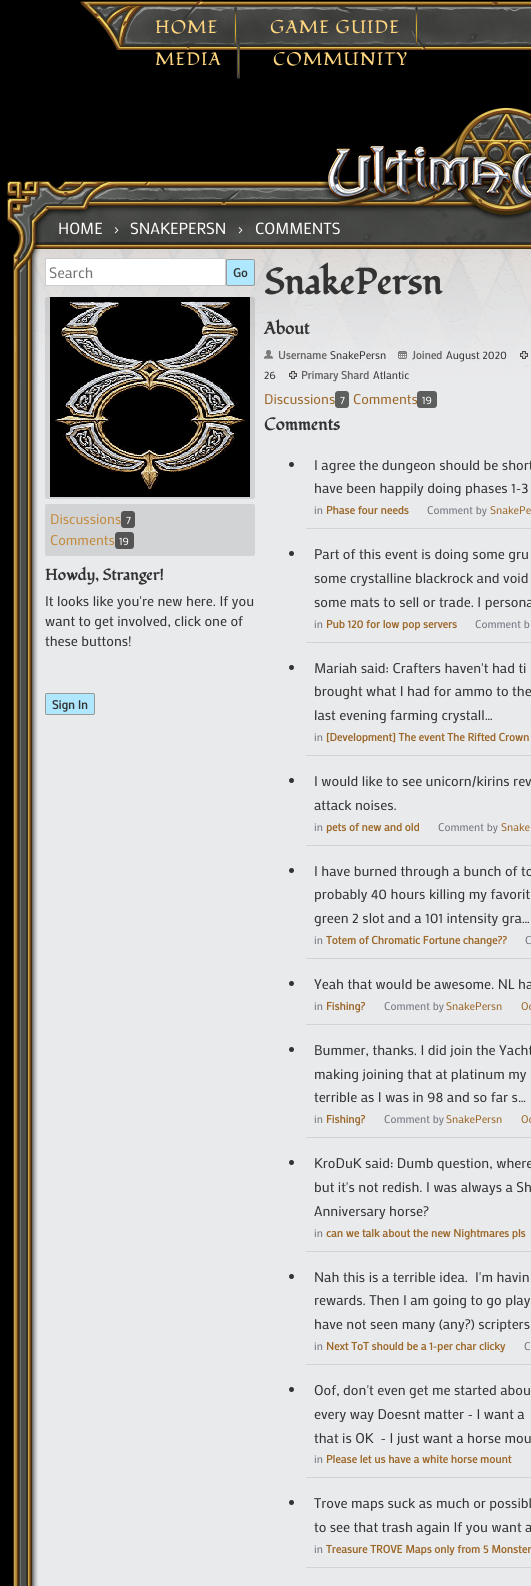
#include <cairo.h>
#include <math.h>
#include <stddef.h>


static void spaced_text(cairo_t *cr, double x, double y, const char *s, double letter, double word) {
    cairo_move_to(cr, x, y);
    while (*s) {
        char ch[5] = {0};
        int n = 0;
        do ch[n++] = *s++; while ((*s & 0xC0) == 0x80);
        cairo_show_text(cr, ch);
        cairo_rel_move_to(cr, letter + word * (*ch == ' '), 0);
    }
}

static void round_rect(cairo_t *cr, double x, double y, double w, double h, double r) {
    cairo_new_sub_path(cr);
    cairo_arc(cr, x + w - r, y + h - r, r, 0, M_PI / 2);
    cairo_arc(cr, x + r, y + h - r, r, M_PI / 2, M_PI);
    cairo_arc(cr, x + r, y + r, r, M_PI, 1.5 * M_PI);
    cairo_arc(cr, x + w - r, y + r, r, 1.5 * M_PI, 2 * M_PI);
    cairo_close_path(cr);
}

static void picture(cairo_t *cr, const char *path, double x, double y, double w, double h) {
    cairo_surface_t *image = cairo_image_surface_create_from_png(path);
    cairo_save(cr);
    cairo_set_source_surface(cr, image, x, y);
    cairo_rectangle(cr, x, y, w, h);
    cairo_fill(cr);
    cairo_restore(cr);
    cairo_surface_destroy(image);
}

int main(void) {
    cairo_surface_t *surface = cairo_image_surface_create(CAIRO_FORMAT_RGB24, 531, 1586);
    cairo_t *cr = cairo_create(surface);
    cairo_font_options_t *options = cairo_font_options_create();
    cairo_font_options_set_hint_metrics(options, CAIRO_HINT_METRICS_OFF);
    cairo_font_options_set_hint_style(options, CAIRO_HINT_STYLE_NONE);
    cairo_set_font_options(cr, options);
    cairo_set_miter_limit(cr, 4);
    cairo_set_source_rgb(cr, 0, 0, 0);
    cairo_paint(cr);
    picture(cr, "img1.png", 80, 0, 451, 50);
    picture(cr, "img2.png", 234, 7, 3, 40);
    cairo_select_font_face(cr, "Fondamento", CAIRO_FONT_SLANT_NORMAL, CAIRO_FONT_WEIGHT_NORMAL);
    cairo_set_font_size(cr, 18);
    cairo_set_source_rgb(cr, 1, 0.835, 0.494);
    spaced_text(cr, 155, 33, "HOME", 1, 0);
    picture(cr, "img3.png", 415, 7, 3, 40);
    spaced_text(cr, 270, 33, "GAME GUIDE", 1, 0);
    picture(cr, "img4.png", 236, 39, 4, 40);
    spaced_text(cr, 155, 65, "MEDIA", 1, 0);
    spaced_text(cr, 273, 65, "COMMUNITY", 1, 0);
    picture(cr, "img5.png", 7, 107, 524, 274);
    cairo_select_font_face(cr, "Mako", CAIRO_FONT_SLANT_NORMAL, CAIRO_FONT_WEIGHT_NORMAL);
    cairo_set_font_size(cr, 16);
    cairo_set_source_rgb(cr, 1, 1, 1);
    cairo_move_to(cr, 58, 234);
    cairo_show_text(cr, "HOME");
    cairo_set_font_size(cr, 14);
    cairo_move_to(cr, 114, 234);
    cairo_show_text(cr, "›");
    cairo_set_font_size(cr, 16);
    cairo_move_to(cr, 130, 234);
    cairo_show_text(cr, "SNAKEPERSN");
    cairo_set_font_size(cr, 14);
    cairo_move_to(cr, 238, 234);
    cairo_show_text(cr, "›");
    cairo_set_font_size(cr, 16);
    cairo_move_to(cr, 255, 234);
    cairo_show_text(cr, "COMMENTS");
    picture(cr, "img6.png", 13, 381, 518, 1205);
    cairo_rectangle(cr, 45.5, 258.5, 180, 27);
    cairo_fill_preserve(cr);
    cairo_set_source_rgb(cr, 0.8, 0.8, 0.8);
    cairo_set_line_width(cr, 1);
    cairo_stroke(cr);
    cairo_set_font_size(cr, 15);
    cairo_set_source_rgb(cr, 0.459, 0.459, 0.459);
    cairo_move_to(cr, 49, 278);
    cairo_show_text(cr, "Search");
    cairo_set_source_rgb(cr, 0.682, 0.906, 0.996);
    round_rect(cr, 226.5, 259.5, 28, 26, 1.5);
    cairo_fill_preserve(cr);
    cairo_set_source_rgb(cr, 0.6, 0.6, 0.6);
    cairo_stroke(cr);
    cairo_select_font_face(cr, "Mako", CAIRO_FONT_SLANT_NORMAL, CAIRO_FONT_WEIGHT_BOLD);
    cairo_set_font_size(cr, 12);
    cairo_set_source_rgb(cr, 0.2, 0.2, 0.2);
    cairo_move_to(cr, 233, 277);
    cairo_show_text(cr, "Go");
    cairo_set_source_rgba(cr, 0, 0, 0, 0.1);
    round_rect(cr, 45, 297, 210, 202, 2);
    cairo_fill(cr);
    picture(cr, "img7.png", 50, 297, 200, 200);
    cairo_set_source_rgb(cr, 0.824, 0.827, 0.831);
    round_rect(cr, 45, 504, 210, 52, 2);
    cairo_fill(cr);
    cairo_select_font_face(cr, "Mako", CAIRO_FONT_SLANT_NORMAL, CAIRO_FONT_WEIGHT_NORMAL);
    cairo_set_font_size(cr, 14);
    cairo_set_source_rgb(cr, 0.761, 0.545, 0.243);
    cairo_move_to(cr, 50, 524);
    cairo_show_text(cr, "Discussions");
    cairo_set_source_rgb(cr, 0.329, 0.329, 0.333);
    round_rect(cr, 121, 511, 14, 17, 3);
    cairo_fill(cr);
    cairo_set_font_size(cr, 11);
    cairo_set_source_rgb(cr, 1, 1, 1);
    cairo_move_to(cr, 126, 524);
    cairo_show_text(cr, "7");
    cairo_set_font_size(cr, 14);
    cairo_set_source_rgb(cr, 0.761, 0.545, 0.243);
    cairo_move_to(cr, 50, 545);
    cairo_show_text(cr, "Comments");
    cairo_set_source_rgb(cr, 0.329, 0.329, 0.333);
    round_rect(cr, 115, 532, 19, 17, 3);
    cairo_fill(cr);
    cairo_set_font_size(cr, 11);
    cairo_set_source_rgb(cr, 1, 1, 1);
    cairo_move_to(cr, 119, 545);
    cairo_show_text(cr, "19");
    cairo_select_font_face(cr, "Fondamento", CAIRO_FONT_SLANT_NORMAL, CAIRO_FONT_WEIGHT_BOLD);
    cairo_set_font_size(cr, 15.5);
    cairo_set_source_rgb(cr, 0.2, 0.2, 0.2);
    cairo_move_to(cr, 45, 580);
    cairo_show_text(cr, "Howdy, Stranger!");
    cairo_select_font_face(cr, "Mako", CAIRO_FONT_SLANT_NORMAL, CAIRO_FONT_WEIGHT_NORMAL);
    cairo_set_font_size(cr, 14);
    cairo_move_to(cr, 45, 606);
    cairo_show_text(cr, "It looks like you're new here. If you");
    cairo_move_to(cr, 45, 626);
    cairo_show_text(cr, "want to get involved, click one of");
    cairo_move_to(cr, 45, 646);
    cairo_show_text(cr, "these buttons!");
    cairo_set_source_rgb(cr, 0.682, 0.906, 0.996);
    round_rect(cr, 45.5, 693.5, 49, 21, 1.5);
    cairo_fill_preserve(cr);
    cairo_set_source_rgb(cr, 0.6, 0.6, 0.6);
    cairo_stroke(cr);
    cairo_select_font_face(cr, "Mako", CAIRO_FONT_SLANT_NORMAL, CAIRO_FONT_WEIGHT_BOLD);
    cairo_set_font_size(cr, 12);
    cairo_set_source_rgb(cr, 0.2, 0.2, 0.2);
    cairo_move_to(cr, 52, 709);
    cairo_show_text(cr, "Sign In");
    cairo_select_font_face(cr, "Fondamento", CAIRO_FONT_SLANT_NORMAL, CAIRO_FONT_WEIGHT_BOLD);
    cairo_set_font_size(cr, 36);
    cairo_move_to(cr, 264, 294);
    cairo_show_text(cr, "SnakePersn");
    cairo_set_font_size(cr, 17);
    cairo_move_to(cr, 264, 334);
    cairo_show_text(cr, "About");
    picture(cr, "img8.png", 264, 350, 9, 9);
    cairo_select_font_face(cr, "Mako", CAIRO_FONT_SLANT_NORMAL, CAIRO_FONT_WEIGHT_BOLD);
    cairo_set_font_size(cr, 11);
    cairo_set_source_rgb(cr, 0.4, 0.4, 0.4);
    cairo_move_to(cr, 278, 359);
    cairo_show_text(cr, "Username");
    cairo_select_font_face(cr, "Mako", CAIRO_FONT_SLANT_NORMAL, CAIRO_FONT_WEIGHT_NORMAL);
    cairo_set_source_rgb(cr, 0.2, 0.2, 0.2);
    cairo_move_to(cr, 330, 359);
    cairo_show_text(cr, "SnakePersn");
    picture(cr, "img9.png", 398, 351, 9, 8);
    cairo_select_font_face(cr, "Mako", CAIRO_FONT_SLANT_NORMAL, CAIRO_FONT_WEIGHT_BOLD);
    cairo_set_source_rgb(cr, 0.4, 0.4, 0.4);
    cairo_move_to(cr, 412, 359);
    cairo_show_text(cr, "Joined");
    cairo_select_font_face(cr, "Mako", CAIRO_FONT_SLANT_NORMAL, CAIRO_FONT_WEIGHT_NORMAL);
    cairo_set_source_rgb(cr, 0.2, 0.2, 0.2);
    cairo_move_to(cr, 446, 359);
    cairo_show_text(cr, "August 2020");
    picture(cr, "img10.png", 520, 351, 8, 8);
    cairo_move_to(cr, 264, 379);
    cairo_show_text(cr, "26");
    picture(cr, "img11.png", 289, 371, 8, 8);
    cairo_select_font_face(cr, "Mako", CAIRO_FONT_SLANT_NORMAL, CAIRO_FONT_WEIGHT_BOLD);
    cairo_set_source_rgb(cr, 0.4, 0.4, 0.4);
    cairo_move_to(cr, 301, 379);
    cairo_show_text(cr, "Primary Shard");
    cairo_select_font_face(cr, "Mako", CAIRO_FONT_SLANT_NORMAL, CAIRO_FONT_WEIGHT_NORMAL);
    cairo_set_source_rgb(cr, 0.2, 0.2, 0.2);
    cairo_move_to(cr, 373, 379);
    cairo_show_text(cr, "Atlantic");
    cairo_set_font_size(cr, 14);
    cairo_set_source_rgb(cr, 0.612, 0.408, 0.165);
    cairo_move_to(cr, 264, 404);
    cairo_show_text(cr, "Discussions");
    cairo_set_source_rgb(cr, 0.365, 0.369, 0.369);
    round_rect(cr, 335, 391, 14, 17, 3);
    cairo_fill(cr);
    cairo_set_font_size(cr, 11);
    cairo_set_source_rgb(cr, 1, 1, 1);
    cairo_move_to(cr, 340, 404);
    cairo_show_text(cr, "7");
    cairo_set_font_size(cr, 14);
    cairo_set_source_rgb(cr, 0.612, 0.408, 0.165);
    cairo_move_to(cr, 353, 404);
    cairo_show_text(cr, "Comments");
    cairo_set_source_rgb(cr, 0.365, 0.369, 0.369);
    round_rect(cr, 417, 391, 20, 17, 3);
    cairo_fill(cr);
    cairo_set_font_size(cr, 11);
    cairo_set_source_rgb(cr, 1, 1, 1);
    cairo_move_to(cr, 422, 404);
    cairo_show_text(cr, "19");
    cairo_select_font_face(cr, "Fondamento", CAIRO_FONT_SLANT_NORMAL, CAIRO_FONT_WEIGHT_BOLD);
    cairo_set_font_size(cr, 17);
    cairo_set_source_rgb(cr, 0.2, 0.2, 0.2);
    cairo_move_to(cr, 264, 430);
    cairo_show_text(cr, "Comments");
    cairo_set_source_rgb(cr, 0.824, 0.827, 0.831);
    cairo_rectangle(cr, 306, 528, 225, 1);
    cairo_fill(cr);
    cairo_set_source_rgb(cr, 0.2, 0.2, 0.2);
    cairo_arc(cr, 291.5, 464.5, 2.5, 0, 2 * M_PI);
    cairo_fill(cr);
    cairo_select_font_face(cr, "Mako", CAIRO_FONT_SLANT_NORMAL, CAIRO_FONT_WEIGHT_NORMAL);
    cairo_set_font_size(cr, 14);
    cairo_move_to(cr, 314, 470);
    cairo_show_text(cr, "I agree the dungeon should be short");
    cairo_move_to(cr, 314, 493);
    cairo_show_text(cr, "have been happily doing phases 1-3");
    cairo_set_font_size(cr, 11);
    cairo_set_source_rgb(cr, 0.439, 0.447, 0.486);
    cairo_move_to(cr, 314, 514);
    cairo_show_text(cr, "in");
    cairo_select_font_face(cr, "Mako", CAIRO_FONT_SLANT_NORMAL, CAIRO_FONT_WEIGHT_BOLD);
    cairo_set_source_rgb(cr, 0.612, 0.408, 0.165);
    cairo_move_to(cr, 326, 514);
    cairo_show_text(cr, "Phase four needs");
    cairo_select_font_face(cr, "Mako", CAIRO_FONT_SLANT_NORMAL, CAIRO_FONT_WEIGHT_NORMAL);
    cairo_set_source_rgb(cr, 0.439, 0.447, 0.486);
    cairo_move_to(cr, 427, 514);
    cairo_show_text(cr, "Comment by");
    cairo_set_source_rgb(cr, 0.612, 0.408, 0.165);
    cairo_move_to(cr, 490, 514);
    cairo_show_text(cr, "SnakePe");
    cairo_set_source_rgb(cr, 0.824, 0.827, 0.831);
    cairo_rectangle(cr, 306, 642, 225, 1);
    cairo_fill(cr);
    cairo_set_source_rgb(cr, 0.2, 0.2, 0.2);
    cairo_arc(cr, 291.5, 553.5, 2.5, 0, 2 * M_PI);
    cairo_fill(cr);
    cairo_set_font_size(cr, 14);
    cairo_move_to(cr, 314, 559);
    cairo_show_text(cr, "Part of this event is doing some gru");
    cairo_move_to(cr, 314, 583);
    cairo_show_text(cr, "some crystalline blackrock and void");
    cairo_move_to(cr, 314, 607);
    cairo_show_text(cr, "some mats to sell or trade. I persona");
    cairo_set_font_size(cr, 11);
    cairo_set_source_rgb(cr, 0.439, 0.447, 0.486);
    cairo_move_to(cr, 314, 628);
    cairo_show_text(cr, "in");
    cairo_select_font_face(cr, "Mako", CAIRO_FONT_SLANT_NORMAL, CAIRO_FONT_WEIGHT_BOLD);
    cairo_set_source_rgb(cr, 0.612, 0.408, 0.165);
    cairo_move_to(cr, 326, 628);
    cairo_show_text(cr, "Pub 120 for low pop servers");
    cairo_select_font_face(cr, "Mako", CAIRO_FONT_SLANT_NORMAL, CAIRO_FONT_WEIGHT_NORMAL);
    cairo_set_source_rgb(cr, 0.439, 0.447, 0.486);
    cairo_move_to(cr, 475, 628);
    cairo_show_text(cr, "Comment b");
    cairo_set_source_rgb(cr, 0.824, 0.827, 0.831);
    cairo_rectangle(cr, 306, 755, 225, 1);
    cairo_fill(cr);
    cairo_set_source_rgb(cr, 0.2, 0.2, 0.2);
    cairo_arc(cr, 291.5, 667.5, 2.5, 0, 2 * M_PI);
    cairo_fill(cr);
    cairo_set_font_size(cr, 14);
    cairo_move_to(cr, 314, 673);
    cairo_show_text(cr, "Mariah said: Crafters haven't had ti");
    cairo_move_to(cr, 314, 696);
    cairo_show_text(cr, "brought what I had for ammo to the");
    cairo_move_to(cr, 314, 720);
    cairo_show_text(cr, "last evening farming crystall…");
    cairo_set_font_size(cr, 11);
    cairo_set_source_rgb(cr, 0.439, 0.447, 0.486);
    cairo_move_to(cr, 314, 741);
    cairo_show_text(cr, "in");
    cairo_select_font_face(cr, "Mako", CAIRO_FONT_SLANT_NORMAL, CAIRO_FONT_WEIGHT_BOLD);
    cairo_set_source_rgb(cr, 0.612, 0.408, 0.165);
    cairo_move_to(cr, 326, 741);
    cairo_show_text(cr, "[Development] The event The Rifted Crown");
    cairo_set_source_rgb(cr, 0.824, 0.827, 0.831);
    cairo_rectangle(cr, 306, 845, 225, 1);
    cairo_fill(cr);
    cairo_set_source_rgb(cr, 0.2, 0.2, 0.2);
    cairo_arc(cr, 291.5, 780.5, 2.5, 0, 2 * M_PI);
    cairo_fill(cr);
    cairo_select_font_face(cr, "Mako", CAIRO_FONT_SLANT_NORMAL, CAIRO_FONT_WEIGHT_NORMAL);
    cairo_set_font_size(cr, 14);
    cairo_move_to(cr, 314, 786);
    cairo_show_text(cr, "I would like to see unicorn/kirins rev");
    cairo_move_to(cr, 314, 810);
    cairo_show_text(cr, "attack noises.");
    cairo_set_font_size(cr, 11);
    cairo_set_source_rgb(cr, 0.439, 0.447, 0.486);
    cairo_move_to(cr, 314, 831);
    cairo_show_text(cr, "in");
    cairo_select_font_face(cr, "Mako", CAIRO_FONT_SLANT_NORMAL, CAIRO_FONT_WEIGHT_BOLD);
    cairo_set_source_rgb(cr, 0.612, 0.408, 0.165);
    cairo_move_to(cr, 326, 831);
    cairo_show_text(cr, "pets of new and old");
    cairo_select_font_face(cr, "Mako", CAIRO_FONT_SLANT_NORMAL, CAIRO_FONT_WEIGHT_NORMAL);
    cairo_set_source_rgb(cr, 0.439, 0.447, 0.486);
    cairo_move_to(cr, 438, 831);
    cairo_show_text(cr, "Comment by");
    cairo_set_source_rgb(cr, 0.612, 0.408, 0.165);
    cairo_move_to(cr, 501, 831);
    cairo_show_text(cr, "Snake");
    cairo_set_source_rgb(cr, 0.824, 0.827, 0.831);
    cairo_rectangle(cr, 306, 958, 225, 1);
    cairo_fill(cr);
    cairo_set_source_rgb(cr, 0.2, 0.2, 0.2);
    cairo_arc(cr, 291.5, 870.5, 2.5, 0, 2 * M_PI);
    cairo_fill(cr);
    cairo_set_font_size(cr, 14);
    cairo_move_to(cr, 314, 876);
    cairo_show_text(cr, "I have burned through a bunch of to");
    cairo_move_to(cr, 314, 899);
    cairo_show_text(cr, "probably 40 hours killing my favorit");
    cairo_move_to(cr, 314, 923);
    cairo_show_text(cr, "green 2 slot and a 101 intensity gra…");
    cairo_set_font_size(cr, 11);
    cairo_set_source_rgb(cr, 0.439, 0.447, 0.486);
    cairo_move_to(cr, 314, 944);
    cairo_show_text(cr, "in");
    cairo_select_font_face(cr, "Mako", CAIRO_FONT_SLANT_NORMAL, CAIRO_FONT_WEIGHT_BOLD);
    cairo_set_source_rgb(cr, 0.612, 0.408, 0.165);
    cairo_move_to(cr, 326, 944);
    cairo_show_text(cr, "Totem of Chromatic Fortune change?\077");
    cairo_select_font_face(cr, "Mako", CAIRO_FONT_SLANT_NORMAL, CAIRO_FONT_WEIGHT_NORMAL);
    cairo_set_source_rgb(cr, 0.439, 0.447, 0.486);
    cairo_move_to(cr, 525, 944);
    cairo_show_text(cr, "C");
    cairo_set_source_rgb(cr, 0.824, 0.827, 0.831);
    cairo_rectangle(cr, 306, 1024, 225, 1);
    cairo_fill(cr);
    cairo_set_source_rgb(cr, 0.2, 0.2, 0.2);
    cairo_arc(cr, 291.5, 983.5, 2.5, 0, 2 * M_PI);
    cairo_fill(cr);
    cairo_set_font_size(cr, 14);
    cairo_move_to(cr, 314, 989);
    cairo_show_text(cr, "Yeah that would be awesome. NL ha");
    cairo_set_font_size(cr, 11);
    cairo_set_source_rgb(cr, 0.439, 0.447, 0.486);
    cairo_move_to(cr, 314, 1010);
    cairo_show_text(cr, "in");
    cairo_select_font_face(cr, "Mako", CAIRO_FONT_SLANT_NORMAL, CAIRO_FONT_WEIGHT_BOLD);
    cairo_set_source_rgb(cr, 0.612, 0.408, 0.165);
    cairo_move_to(cr, 326, 1010);
    cairo_show_text(cr, "Fishing?");
    cairo_select_font_face(cr, "Mako", CAIRO_FONT_SLANT_NORMAL, CAIRO_FONT_WEIGHT_NORMAL);
    cairo_set_source_rgb(cr, 0.439, 0.447, 0.486);
    cairo_move_to(cr, 384, 1010);
    cairo_show_text(cr, "Comment by");
    cairo_set_source_rgb(cr, 0.612, 0.408, 0.165);
    cairo_move_to(cr, 446, 1010);
    cairo_show_text(cr, "SnakePersn");
    cairo_move_to(cr, 521, 1010);
    cairo_show_text(cr, "Oc");
    cairo_set_source_rgb(cr, 0.824, 0.827, 0.831);
    cairo_rectangle(cr, 306, 1137, 225, 1);
    cairo_fill(cr);
    cairo_set_source_rgb(cr, 0.2, 0.2, 0.2);
    cairo_arc(cr, 291.5, 1049.5, 2.5, 0, 2 * M_PI);
    cairo_fill(cr);
    cairo_set_font_size(cr, 14);
    cairo_move_to(cr, 314, 1055);
    cairo_show_text(cr, "Bummer, thanks. I did join the Yacht");
    cairo_move_to(cr, 314, 1079);
    cairo_show_text(cr, "making joining that at platinum my");
    cairo_move_to(cr, 314, 1102);
    cairo_show_text(cr, "terrible as I was in 98 and so far s…");
    cairo_set_font_size(cr, 11);
    cairo_set_source_rgb(cr, 0.439, 0.447, 0.486);
    cairo_move_to(cr, 314, 1123);
    cairo_show_text(cr, "in");
    cairo_select_font_face(cr, "Mako", CAIRO_FONT_SLANT_NORMAL, CAIRO_FONT_WEIGHT_BOLD);
    cairo_set_source_rgb(cr, 0.612, 0.408, 0.165);
    cairo_move_to(cr, 326, 1123);
    cairo_show_text(cr, "Fishing?");
    cairo_select_font_face(cr, "Mako", CAIRO_FONT_SLANT_NORMAL, CAIRO_FONT_WEIGHT_NORMAL);
    cairo_set_source_rgb(cr, 0.439, 0.447, 0.486);
    cairo_move_to(cr, 384, 1123);
    cairo_show_text(cr, "Comment by");
    cairo_set_source_rgb(cr, 0.612, 0.408, 0.165);
    cairo_move_to(cr, 446, 1123);
    cairo_show_text(cr, "SnakePersn");
    cairo_move_to(cr, 521, 1123);
    cairo_show_text(cr, "Oc");
    cairo_set_source_rgb(cr, 0.824, 0.827, 0.831);
    cairo_rectangle(cr, 306, 1251, 225, 1);
    cairo_fill(cr);
    cairo_set_source_rgb(cr, 0.2, 0.2, 0.2);
    cairo_arc(cr, 291.5, 1162.5, 2.5, 0, 2 * M_PI);
    cairo_fill(cr);
    cairo_set_font_size(cr, 14);
    cairo_move_to(cr, 314, 1168);
    cairo_show_text(cr, "KroDuK said: Dumb question, where");
    cairo_move_to(cr, 314, 1192);
    cairo_show_text(cr, "but it's not redish. I was always a Sh");
    cairo_move_to(cr, 314, 1216);
    cairo_show_text(cr, "Anniversary horse?");
    cairo_set_font_size(cr, 11);
    cairo_set_source_rgb(cr, 0.439, 0.447, 0.486);
    cairo_move_to(cr, 314, 1237);
    cairo_show_text(cr, "in");
    cairo_select_font_face(cr, "Mako", CAIRO_FONT_SLANT_NORMAL, CAIRO_FONT_WEIGHT_BOLD);
    cairo_set_source_rgb(cr, 0.612, 0.408, 0.165);
    cairo_move_to(cr, 326, 1237);
    cairo_show_text(cr, "can we talk about the new Nightmares pls");
    cairo_set_source_rgb(cr, 0.824, 0.827, 0.831);
    cairo_rectangle(cr, 306, 1364, 225, 1);
    cairo_fill(cr);
    cairo_set_source_rgb(cr, 0.2, 0.2, 0.2);
    cairo_arc(cr, 291.5, 1276.5, 2.5, 0, 2 * M_PI);
    cairo_fill(cr);
    cairo_select_font_face(cr, "Mako", CAIRO_FONT_SLANT_NORMAL, CAIRO_FONT_WEIGHT_NORMAL);
    cairo_set_font_size(cr, 14);
    cairo_move_to(cr, 314, 1282);
    cairo_show_text(cr, "Nah this is a terrible idea.  I'm havin");
    cairo_move_to(cr, 314, 1305);
    cairo_show_text(cr, "rewards. Then I am going to go play");
    cairo_move_to(cr, 314, 1329);
    cairo_show_text(cr, "have not seen many (any?) scripters");
    cairo_set_font_size(cr, 11);
    cairo_set_source_rgb(cr, 0.439, 0.447, 0.486);
    cairo_move_to(cr, 314, 1350);
    cairo_show_text(cr, "in");
    cairo_select_font_face(cr, "Mako", CAIRO_FONT_SLANT_NORMAL, CAIRO_FONT_WEIGHT_BOLD);
    cairo_set_source_rgb(cr, 0.612, 0.408, 0.165);
    cairo_move_to(cr, 326, 1350);
    cairo_show_text(cr, "Next ToT should be a 1-per char clicky");
    cairo_select_font_face(cr, "Mako", CAIRO_FONT_SLANT_NORMAL, CAIRO_FONT_WEIGHT_NORMAL);
    cairo_set_source_rgb(cr, 0.439, 0.447, 0.486);
    cairo_move_to(cr, 524, 1350);
    cairo_show_text(cr, "C");
    cairo_set_source_rgb(cr, 0.824, 0.827, 0.831);
    cairo_rectangle(cr, 306, 1477, 225, 1);
    cairo_fill(cr);
    cairo_set_source_rgb(cr, 0.2, 0.2, 0.2);
    cairo_arc(cr, 291.5, 1389.5, 2.5, 0, 2 * M_PI);
    cairo_fill(cr);
    cairo_set_font_size(cr, 14);
    cairo_move_to(cr, 314, 1395);
    cairo_show_text(cr, "Oof, don't even get me started abou");
    cairo_move_to(cr, 314, 1419);
    cairo_show_text(cr, "every way Doesnt matter - I want a");
    cairo_move_to(cr, 314, 1443);
    cairo_show_text(cr, "that is OK  - I just want a horse mou");
    cairo_set_font_size(cr, 11);
    cairo_set_source_rgb(cr, 0.439, 0.447, 0.486);
    cairo_move_to(cr, 314, 1463);
    cairo_show_text(cr, "in");
    cairo_select_font_face(cr, "Mako", CAIRO_FONT_SLANT_NORMAL, CAIRO_FONT_WEIGHT_BOLD);
    cairo_set_source_rgb(cr, 0.612, 0.408, 0.165);
    cairo_move_to(cr, 326, 1463);
    cairo_show_text(cr, "Please let us have a white horse mount");
    cairo_set_source_rgb(cr, 0.824, 0.827, 0.831);
    cairo_rectangle(cr, 306, 1567, 225, 1);
    cairo_fill(cr);
    cairo_set_source_rgb(cr, 0.2, 0.2, 0.2);
    cairo_arc(cr, 291.5, 1502.5, 2.5, 0, 2 * M_PI);
    cairo_fill(cr);
    cairo_select_font_face(cr, "Mako", CAIRO_FONT_SLANT_NORMAL, CAIRO_FONT_WEIGHT_NORMAL);
    cairo_set_font_size(cr, 14);
    cairo_move_to(cr, 314, 1508);
    cairo_show_text(cr, "Trove maps suck as much or possibl");
    cairo_move_to(cr, 314, 1532);
    cairo_show_text(cr, "to see that trash again If you want a");
    cairo_set_font_size(cr, 11);
    cairo_set_source_rgb(cr, 0.439, 0.447, 0.486);
    cairo_move_to(cr, 314, 1553);
    cairo_show_text(cr, "in");
    cairo_select_font_face(cr, "Mako", CAIRO_FONT_SLANT_NORMAL, CAIRO_FONT_WEIGHT_BOLD);
    cairo_set_source_rgb(cr, 0.612, 0.408, 0.165);
    cairo_move_to(cr, 326, 1553);
    cairo_show_text(cr, "Treasure TROVE Maps only from 5 Monster");
    cairo_surface_write_to_png(surface, "page.png");
    cairo_font_options_destroy(options);
    cairo_destroy(cr);
    cairo_surface_destroy(surface);
    return 0;
}
